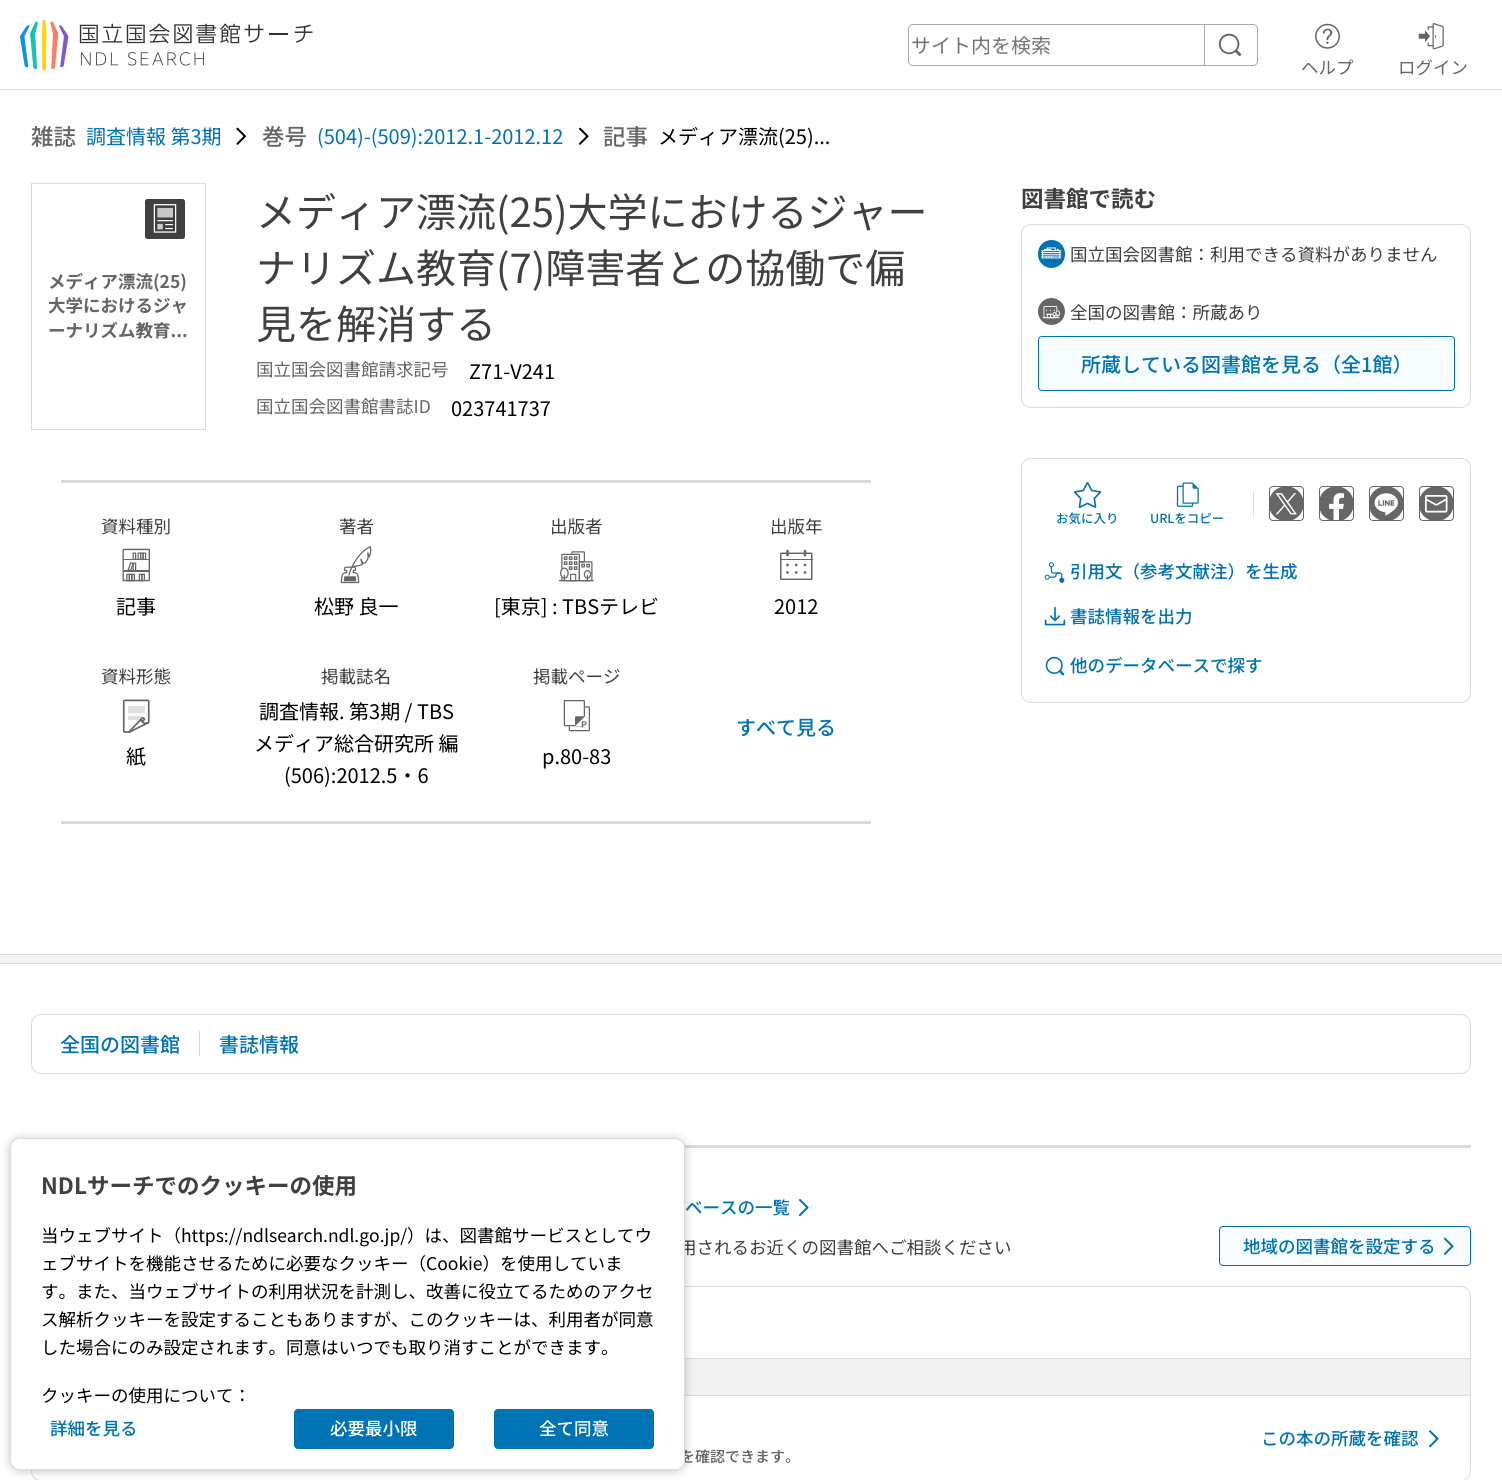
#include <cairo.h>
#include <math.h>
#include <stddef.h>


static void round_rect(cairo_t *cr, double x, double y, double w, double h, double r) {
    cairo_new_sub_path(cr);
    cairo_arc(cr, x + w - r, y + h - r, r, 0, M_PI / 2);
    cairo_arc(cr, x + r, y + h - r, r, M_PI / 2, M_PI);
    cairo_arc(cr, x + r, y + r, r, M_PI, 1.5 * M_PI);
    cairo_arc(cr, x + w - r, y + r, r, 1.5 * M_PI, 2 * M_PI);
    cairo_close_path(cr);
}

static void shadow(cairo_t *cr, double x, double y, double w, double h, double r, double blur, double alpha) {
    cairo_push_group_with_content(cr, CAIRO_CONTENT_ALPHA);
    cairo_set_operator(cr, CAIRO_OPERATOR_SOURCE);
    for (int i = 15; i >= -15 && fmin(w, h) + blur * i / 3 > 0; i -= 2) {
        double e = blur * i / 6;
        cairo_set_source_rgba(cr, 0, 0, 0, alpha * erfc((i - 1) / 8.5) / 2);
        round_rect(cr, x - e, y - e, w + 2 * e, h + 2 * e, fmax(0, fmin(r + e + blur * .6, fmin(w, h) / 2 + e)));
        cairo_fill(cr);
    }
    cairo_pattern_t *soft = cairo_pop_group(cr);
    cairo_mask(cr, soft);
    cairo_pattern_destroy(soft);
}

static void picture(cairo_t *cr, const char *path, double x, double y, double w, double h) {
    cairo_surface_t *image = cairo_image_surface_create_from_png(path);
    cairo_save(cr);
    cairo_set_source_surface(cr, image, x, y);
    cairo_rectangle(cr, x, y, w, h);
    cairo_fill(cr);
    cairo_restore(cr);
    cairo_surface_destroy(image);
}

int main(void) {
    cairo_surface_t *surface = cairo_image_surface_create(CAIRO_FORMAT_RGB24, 1502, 1480);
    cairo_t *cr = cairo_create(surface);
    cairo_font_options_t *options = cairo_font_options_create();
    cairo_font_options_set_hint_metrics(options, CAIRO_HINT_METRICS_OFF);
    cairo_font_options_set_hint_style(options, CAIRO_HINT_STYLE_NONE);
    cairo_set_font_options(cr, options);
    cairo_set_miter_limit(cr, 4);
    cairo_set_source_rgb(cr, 1, 1, 1);
    cairo_paint(cr);
    cairo_set_source_rgb(cr, 0.859, 0.859, 0.859);
    cairo_rectangle(cr, 0, 89, 1502, 1);
    cairo_fill(cr);
    picture(cr, "img1.png", 20, 20, 293, 50);
    round_rect(cr, 908.5, 24.5, 349, 41, 4.5);
    cairo_set_source_rgb(cr, 0.667, 0.667, 0.667);
    cairo_set_line_width(cr, 1);
    cairo_stroke(cr);
    cairo_select_font_face(cr, "Noto Sans JP", CAIRO_FONT_SLANT_NORMAL, CAIRO_FONT_WEIGHT_NORMAL);
    cairo_set_font_size(cr, 20);
    cairo_set_source_rgb(cr, 0.463, 0.463, 0.463);
    cairo_move_to(cr, 911, 53);
    cairo_show_text(cr, "サイト内を検索");
    cairo_set_source_rgb(cr, 0.667, 0.667, 0.667);
    cairo_rectangle(cr, 1204, 24, 1, 42);
    cairo_fill(cr);
    picture(cr, "img2.png", 1218, 33, 24, 24);
    picture(cr, "img3.png", 1315, 23, 25, 26);
    cairo_set_font_size(cr, 17.5);
    cairo_set_source_rgb(cr, 0.4, 0.4, 0.4);
    cairo_move_to(cr, 1301, 74);
    cairo_show_text(cr, "ヘルプ");
    picture(cr, "img4.png", 1418, 23, 26, 27);
    cairo_move_to(cr, 1398, 74);
    cairo_show_text(cr, "ログイン");
    cairo_select_font_face(cr, "Noto Sans JP Medium", CAIRO_FONT_SLANT_NORMAL, CAIRO_FONT_WEIGHT_NORMAL);
    cairo_set_font_size(cr, 22.5);
    cairo_move_to(cr, 31, 145);
    cairo_show_text(cr, "雑誌");
    cairo_select_font_face(cr, "Noto Sans JP", CAIRO_FONT_SLANT_NORMAL, CAIRO_FONT_WEIGHT_NORMAL);
    cairo_set_font_size(cr, 20);
    cairo_set_source_rgb(cr, 0, 0.451, 0.71);
    cairo_move_to(cr, 86, 144);
    cairo_show_text(cr, "調査情報 第3期");
    picture(cr, "img5.png", 236, 127, 11, 18);
    cairo_select_font_face(cr, "Noto Sans JP Medium", CAIRO_FONT_SLANT_NORMAL, CAIRO_FONT_WEIGHT_NORMAL);
    cairo_set_font_size(cr, 22.5);
    cairo_set_source_rgb(cr, 0.4, 0.4, 0.4);
    cairo_move_to(cr, 262, 145);
    cairo_show_text(cr, "巻号");
    cairo_select_font_face(cr, "Noto Sans JP", CAIRO_FONT_SLANT_NORMAL, CAIRO_FONT_WEIGHT_NORMAL);
    cairo_set_font_size(cr, 20);
    cairo_set_source_rgb(cr, 0, 0.451, 0.71);
    cairo_move_to(cr, 317, 144);
    cairo_show_text(cr, "(504)-(509):2012.1-2012.12");
    picture(cr, "img6.png", 578, 127, 11, 18);
    cairo_select_font_face(cr, "Noto Sans JP Medium", CAIRO_FONT_SLANT_NORMAL, CAIRO_FONT_WEIGHT_NORMAL);
    cairo_set_font_size(cr, 22.5);
    cairo_set_source_rgb(cr, 0.4, 0.4, 0.4);
    cairo_move_to(cr, 603, 145);
    cairo_show_text(cr, "記事");
    cairo_select_font_face(cr, "Noto Sans JP", CAIRO_FONT_SLANT_NORMAL, CAIRO_FONT_WEIGHT_NORMAL);
    cairo_set_font_size(cr, 20);
    cairo_set_source_rgb(cr, 0, 0, 0);
    cairo_move_to(cr, 658, 144);
    cairo_show_text(cr, "メディア漂流(25)...");
    cairo_rectangle(cr, 31.5, 183.5, 174, 246);
    cairo_set_source_rgb(cr, 0.859, 0.859, 0.859);
    cairo_stroke(cr);
    picture(cr, "img7.png", 145, 199, 40, 40);
    cairo_select_font_face(cr, "Noto Sans JP", CAIRO_FONT_SLANT_NORMAL, CAIRO_FONT_WEIGHT_BOLD);
    cairo_set_font_size(cr, 17.5);
    cairo_set_source_rgb(cr, 0.4, 0.4, 0.4);
    cairo_move_to(cr, 48, 288);
    cairo_show_text(cr, "メディア漂流(25)");
    cairo_move_to(cr, 48, 312);
    cairo_show_text(cr, "大学におけるジャ");
    cairo_move_to(cr, 48, 337);
    cairo_show_text(cr, "ーナリズム教育...");
    cairo_select_font_face(cr, "Noto Sans JP", CAIRO_FONT_SLANT_NORMAL, CAIRO_FONT_WEIGHT_NORMAL);
    cairo_set_font_size(cr, 40);
    cairo_set_source_rgb(cr, 0.251, 0.251, 0.251);
    cairo_move_to(cr, 256, 227);
    cairo_show_text(cr, "メディア漂流(25)大学におけるジャー");
    cairo_move_to(cr, 256, 283);
    cairo_show_text(cr, "ナリズム教育(7)障害者との協働で偏");
    cairo_move_to(cr, 256, 339);
    cairo_show_text(cr, "見を解消する");
    cairo_set_font_size(cr, 17.5);
    cairo_set_source_rgb(cr, 0.4, 0.4, 0.4);
    cairo_move_to(cr, 256, 376);
    cairo_show_text(cr, "国立国会図書館請求記号");
    cairo_set_font_size(cr, 20);
    cairo_set_source_rgb(cr, 0, 0, 0);
    cairo_move_to(cr, 469, 379);
    cairo_show_text(cr, "Z71-V241");
    cairo_set_font_size(cr, 17.5);
    cairo_set_source_rgb(cr, 0.4, 0.4, 0.4);
    cairo_move_to(cr, 256, 413);
    cairo_show_text(cr, "国立国会図書館書誌ID");
    cairo_set_font_size(cr, 20);
    cairo_set_source_rgb(cr, 0, 0, 0);
    cairo_move_to(cr, 451, 416);
    cairo_show_text(cr, "023741737");
    cairo_set_source_rgb(cr, 0.859, 0.859, 0.859);
    cairo_rectangle(cr, 61, 480, 810, 3);
    cairo_fill(cr);
    cairo_set_font_size(cr, 17.5);
    cairo_set_source_rgb(cr, 0.251, 0.251, 0.251);
    cairo_move_to(cr, 101, 533);
    cairo_show_text(cr, "資料種別");
    picture(cr, "img8.png", 122, 548, 28, 34);
    cairo_set_font_size(cr, 20);
    cairo_set_source_rgb(cr, 0, 0, 0);
    cairo_move_to(cr, 116, 614);
    cairo_show_text(cr, "記事");
    cairo_set_font_size(cr, 17.5);
    cairo_set_source_rgb(cr, 0.251, 0.251, 0.251);
    cairo_move_to(cr, 339, 533);
    cairo_show_text(cr, "著者");
    picture(cr, "img9.png", 340, 546, 32, 38);
    cairo_set_font_size(cr, 20);
    cairo_set_source_rgb(cr, 0, 0, 0);
    cairo_move_to(cr, 314, 614);
    cairo_show_text(cr, "松野 良一");
    cairo_set_font_size(cr, 17.5);
    cairo_set_source_rgb(cr, 0.251, 0.251, 0.251);
    cairo_move_to(cr, 550, 533);
    cairo_show_text(cr, "出版者");
    picture(cr, "img10.png", 558, 551, 36, 31);
    cairo_set_font_size(cr, 20);
    cairo_set_source_rgb(cr, 0, 0, 0);
    cairo_move_to(cr, 494, 614);
    cairo_show_text(cr, "[東京] : TBSテレビ");
    cairo_set_font_size(cr, 17.5);
    cairo_set_source_rgb(cr, 0.251, 0.251, 0.251);
    cairo_move_to(cr, 770, 533);
    cairo_show_text(cr, "出版年");
    picture(cr, "img11.png", 780, 550, 33, 30);
    cairo_set_font_size(cr, 20);
    cairo_set_source_rgb(cr, 0, 0, 0);
    cairo_move_to(cr, 774, 614);
    cairo_show_text(cr, "2012");
    cairo_set_font_size(cr, 17.5);
    cairo_set_source_rgb(cr, 0.251, 0.251, 0.251);
    cairo_move_to(cr, 101, 683);
    cairo_show_text(cr, "資料形態");
    picture(cr, "img12.png", 122, 699, 28, 34);
    cairo_set_font_size(cr, 20);
    cairo_set_source_rgb(cr, 0, 0, 0);
    cairo_move_to(cr, 126, 764);
    cairo_show_text(cr, "紙");
    cairo_set_font_size(cr, 17.5);
    cairo_set_source_rgb(cr, 0.251, 0.251, 0.251);
    cairo_move_to(cr, 321, 683);
    cairo_show_text(cr, "掲載誌名");
    cairo_set_font_size(cr, 20);
    cairo_set_source_rgb(cr, 0, 0, 0);
    cairo_move_to(cr, 259, 719);
    cairo_show_text(cr, "調査情報. 第3期 / TBS");
    cairo_move_to(cr, 254, 751);
    cairo_show_text(cr, "メディア総合研究所 編");
    cairo_move_to(cr, 284, 783);
    cairo_show_text(cr, "(506):2012.5・6");
    cairo_set_font_size(cr, 17.5);
    cairo_set_source_rgb(cr, 0.251, 0.251, 0.251);
    cairo_move_to(cr, 533, 683);
    cairo_show_text(cr, "掲載ページ");
    picture(cr, "img13.png", 563, 700, 27, 32);
    cairo_set_font_size(cr, 20);
    cairo_set_source_rgb(cr, 0, 0, 0);
    cairo_move_to(cr, 542, 764);
    cairo_show_text(cr, "p.80-83");
    cairo_select_font_face(cr, "Noto Sans JP Medium", CAIRO_FONT_SLANT_NORMAL, CAIRO_FONT_WEIGHT_NORMAL);
    cairo_set_source_rgb(cr, 0, 0.451, 0.71);
    cairo_move_to(cr, 736, 735);
    cairo_show_text(cr, "すべて見る");
    cairo_set_source_rgb(cr, 0.859, 0.859, 0.859);
    cairo_rectangle(cr, 61, 821, 810, 3);
    cairo_fill(cr);
    cairo_select_font_face(cr, "Noto Sans JP", CAIRO_FONT_SLANT_NORMAL, CAIRO_FONT_WEIGHT_BOLD);
    cairo_set_font_size(cr, 22.5);
    cairo_set_source_rgb(cr, 0.251, 0.251, 0.251);
    cairo_move_to(cr, 1021, 207);
    cairo_show_text(cr, "図書館で読む");
    round_rect(cr, 1021.5, 224.5, 449, 183, 9.5);
    cairo_set_source_rgb(cr, 0.859, 0.859, 0.859);
    cairo_stroke(cr);
    picture(cr, "img14.png", 1038, 240, 27, 28);
    cairo_select_font_face(cr, "Noto Sans JP", CAIRO_FONT_SLANT_NORMAL, CAIRO_FONT_WEIGHT_NORMAL);
    cairo_set_font_size(cr, 17.5);
    cairo_set_source_rgb(cr, 0.251, 0.251, 0.251);
    cairo_move_to(cr, 1070, 261);
    cairo_show_text(cr, "国立国会図書館：利用できる資料がありません");
    picture(cr, "img15.png", 1038, 298, 27, 27);
    cairo_move_to(cr, 1070, 319);
    cairo_show_text(cr, "全国の図書館：所蔵あり");
    cairo_set_source_rgb(cr, 0.961, 0.988, 1);
    round_rect(cr, 1038.5, 336.5, 416, 54, 3.5);
    cairo_fill_preserve(cr);
    cairo_set_source_rgb(cr, 0, 0.451, 0.71);
    cairo_stroke(cr);
    cairo_select_font_face(cr, "Noto Sans JP Medium", CAIRO_FONT_SLANT_NORMAL, CAIRO_FONT_WEIGHT_NORMAL);
    cairo_set_font_size(cr, 20);
    cairo_move_to(cr, 1081, 372);
    cairo_show_text(cr, "所蔵している図書館を見る（全1館）");
    round_rect(cr, 1021.5, 458.5, 449, 244, 9.5);
    cairo_set_source_rgb(cr, 0.859, 0.859, 0.859);
    cairo_stroke(cr);
    cairo_rectangle(cr, 1253, 491, 1, 25);
    cairo_fill(cr);
    round_rect(cr, 1269.5, 486.5, 34, 34, 3.5);
    cairo_set_source_rgb(cr, 0.4, 0.4, 0.4);
    cairo_stroke(cr);
    picture(cr, "img16.png", 1270, 487, 33, 33);
    round_rect(cr, 1319.5, 486.5, 34, 34, 3.5);
    cairo_stroke(cr);
    picture(cr, "img17.png", 1320, 487, 33, 33);
    round_rect(cr, 1369.5, 486.5, 34, 34, 3.5);
    cairo_stroke(cr);
    picture(cr, "img18.png", 1370, 487, 33, 33);
    round_rect(cr, 1419.5, 486.5, 34, 34, 3.5);
    cairo_stroke(cr);
    picture(cr, "img19.png", 1420, 487, 33, 33);
    picture(cr, "img20.png", 1073, 482, 29, 26);
    cairo_set_font_size(cr, 12.5);
    cairo_set_source_rgb(cr, 0, 0.451, 0.71);
    cairo_move_to(cr, 1056, 523);
    cairo_show_text(cr, "お気に入り");
    picture(cr, "img21.png", 1176, 482, 23, 25);
    cairo_move_to(cr, 1150, 523);
    cairo_show_text(cr, "URLをコピー");
    picture(cr, "img22.png", 1044, 562, 21, 21);
    cairo_set_font_size(cr, 17.5);
    cairo_move_to(cr, 1070, 578);
    cairo_show_text(cr, "引用文（参考文献注）を生成");
    picture(cr, "img23.png", 1044, 607, 22, 19);
    cairo_move_to(cr, 1070, 623);
    cairo_show_text(cr, "書誌情報を出力");
    picture(cr, "img24.png", 1045, 656, 20, 20);
    cairo_move_to(cr, 1070, 672);
    cairo_show_text(cr, "他のデータベースで探す");
    cairo_set_source_rgb(cr, 0.949, 0.949, 0.949);
    cairo_rectangle(cr, 0, 955, 1502, 8);
    cairo_fill(cr);
    cairo_set_source_rgb(cr, 0.859, 0.859, 0.859);
    cairo_rectangle(cr, 0, 954, 1502, 1);
    cairo_fill(cr);
    cairo_rectangle(cr, 0, 963, 1502, 1);
    cairo_fill(cr);
    round_rect(cr, 31.5, 1014.5, 1439, 59, 9.5);
    cairo_stroke(cr);
    cairo_set_font_size(cr, 20);
    cairo_set_source_rgb(cr, 0, 0.451, 0.71);
    cairo_move_to(cr, 60, 1052);
    cairo_show_text(cr, "全国の図書館");
    cairo_set_source_rgb(cr, 0.859, 0.859, 0.859);
    cairo_rectangle(cr, 199, 1031, 1, 25);
    cairo_fill(cr);
    cairo_set_source_rgb(cr, 0, 0.451, 0.71);
    cairo_move_to(cr, 219, 1052);
    cairo_show_text(cr, "書誌情報");
    cairo_set_source_rgb(cr, 0.859, 0.859, 0.859);
    cairo_rectangle(cr, 684, 1145, 787, 3);
    cairo_fill(cr);
    cairo_set_font_size(cr, 17.5);
    cairo_set_source_rgb(cr, 0, 0.451, 0.71);
    cairo_move_to(cr, 685, 1214);
    cairo_show_text(cr, "ベースの一覧");
    picture(cr, "img25.png", 799, 1199, 10, 17);
    cairo_select_font_face(cr, "Noto Sans JP", CAIRO_FONT_SLANT_NORMAL, CAIRO_FONT_WEIGHT_NORMAL);
    cairo_set_source_rgb(cr, 0.251, 0.251, 0.251);
    cairo_move_to(cr, 679, 1254);
    cairo_show_text(cr, "用されるお近くの図書館へご相談ください");
    cairo_set_source_rgb(cr, 0.961, 0.988, 1);
    round_rect(cr, 1219.5, 1226.5, 251, 39, 3.5);
    cairo_fill_preserve(cr);
    cairo_set_source_rgb(cr, 0, 0.451, 0.71);
    cairo_stroke(cr);
    cairo_select_font_face(cr, "Noto Sans JP Medium", CAIRO_FONT_SLANT_NORMAL, CAIRO_FONT_WEIGHT_NORMAL);
    cairo_move_to(cr, 1243, 1253);
    cairo_show_text(cr, "地域の図書館を設定する");
    picture(cr, "img26.png", 1443, 1237, 11, 18);
    round_rect(cr, 31.5, 1286.5, 1439, 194, 9.5);
    cairo_set_source_rgb(cr, 0.859, 0.859, 0.859);
    cairo_stroke(cr);
    cairo_set_source_rgb(cr, 0.949, 0.949, 0.949);
    cairo_rectangle(cr, 685, 1359, 785, 36);
    cairo_fill(cr);
    cairo_set_source_rgb(cr, 0.859, 0.859, 0.859);
    cairo_rectangle(cr, 685, 1358, 785, 1);
    cairo_fill(cr);
    cairo_rectangle(cr, 685, 1395, 785, 1);
    cairo_fill(cr);
    cairo_set_source_rgb(cr, 0, 0.451, 0.71);
    cairo_move_to(cr, 1261, 1445);
    cairo_show_text(cr, "この本の所蔵を確認");
    picture(cr, "img27.png", 1428, 1430, 11, 18);
    cairo_set_font_size(cr, 15);
    cairo_set_source_rgb(cr, 0.4, 0.4, 0.4);
    cairo_move_to(cr, 680, 1462);
    cairo_show_text(cr, "を確認できます。");
    cairo_set_source_rgb(cr, 0, 0, 0);
    shadow(cr, 10, 1139, 675, 332, 10, 5, 0.24);
    cairo_set_source_rgb(cr, 1, 1, 1);
    round_rect(cr, 10.5, 1138.5, 674, 331, 9.5);
    cairo_fill_preserve(cr);
    cairo_set_source_rgb(cr, 0.859, 0.859, 0.859);
    cairo_stroke(cr);
    cairo_select_font_face(cr, "Noto Sans JP", CAIRO_FONT_SLANT_NORMAL, CAIRO_FONT_WEIGHT_BOLD);
    cairo_set_font_size(cr, 22.5);
    cairo_set_source_rgb(cr, 0.251, 0.251, 0.251);
    cairo_move_to(cr, 41, 1194);
    cairo_show_text(cr, "NDLサーチでのクッキーの使用");
    cairo_select_font_face(cr, "Noto Sans JP", CAIRO_FONT_SLANT_NORMAL, CAIRO_FONT_WEIGHT_NORMAL);
    cairo_set_font_size(cr, 17.5);
    cairo_set_source_rgb(cr, 0, 0, 0);
    cairo_move_to(cr, 41, 1242);
    cairo_show_text(cr, "当ウェブサイト（https://ndlsearch.ndl.go.jp/）は、図書館サービスとしてウ");
    cairo_move_to(cr, 41, 1270);
    cairo_show_text(cr, "ェブサイトを機能させるために必要なクッキー（Cookie）を使用していま");
    cairo_move_to(cr, 41, 1298);
    cairo_show_text(cr, "す。また、当ウェブサイトの利用状況を計測し、改善に役立てるためのアクセ");
    cairo_move_to(cr, 41, 1326);
    cairo_show_text(cr, "ス解析クッキーを設定することもありますが、このクッキーは、利用者が同意");
    cairo_move_to(cr, 41, 1354);
    cairo_show_text(cr, "した場合にのみ設定されます。同意はいつでも取り消すことができます。");
    cairo_set_source_rgb(cr, 1, 1, 1);
    cairo_new_path(cr);
    cairo_move_to(cr, 11, 1361);
    cairo_line_to(cr, 684, 1361);
    cairo_line_to(cr, 684, 1460);
    cairo_curve_to(cr, 684, 1465, 680, 1469, 675, 1469);
    cairo_line_to(cr, 20, 1469);
    cairo_curve_to(cr, 15, 1469, 11, 1465, 11, 1460);
    cairo_close_path(cr);
    cairo_fill(cr);
    cairo_set_source_rgb(cr, 0, 0, 0);
    cairo_move_to(cr, 41, 1402);
    cairo_show_text(cr, "クッキーの使用について：");
    cairo_select_font_face(cr, "Noto Sans JP Medium", CAIRO_FONT_SLANT_NORMAL, CAIRO_FONT_WEIGHT_NORMAL);
    cairo_set_source_rgb(cr, 0, 0.451, 0.71);
    cairo_move_to(cr, 50, 1435);
    cairo_show_text(cr, "詳細を見る");
    round_rect(cr, 294.5, 1409.5, 159, 39, 3.5);
    cairo_fill_preserve(cr);
    cairo_stroke(cr);
    cairo_set_source_rgb(cr, 1, 1, 1);
    cairo_move_to(cr, 330, 1435);
    cairo_show_text(cr, "必要最小限");
    cairo_set_source_rgb(cr, 0, 0.451, 0.71);
    round_rect(cr, 494.5, 1409.5, 159, 39, 3.5);
    cairo_fill_preserve(cr);
    cairo_stroke(cr);
    cairo_set_source_rgb(cr, 1, 1, 1);
    cairo_move_to(cr, 539, 1435);
    cairo_show_text(cr, "全て同意");
    cairo_surface_write_to_png(surface, "page.png");
    cairo_font_options_destroy(options);
    cairo_destroy(cr);
    cairo_surface_destroy(surface);
    return 0;
}
